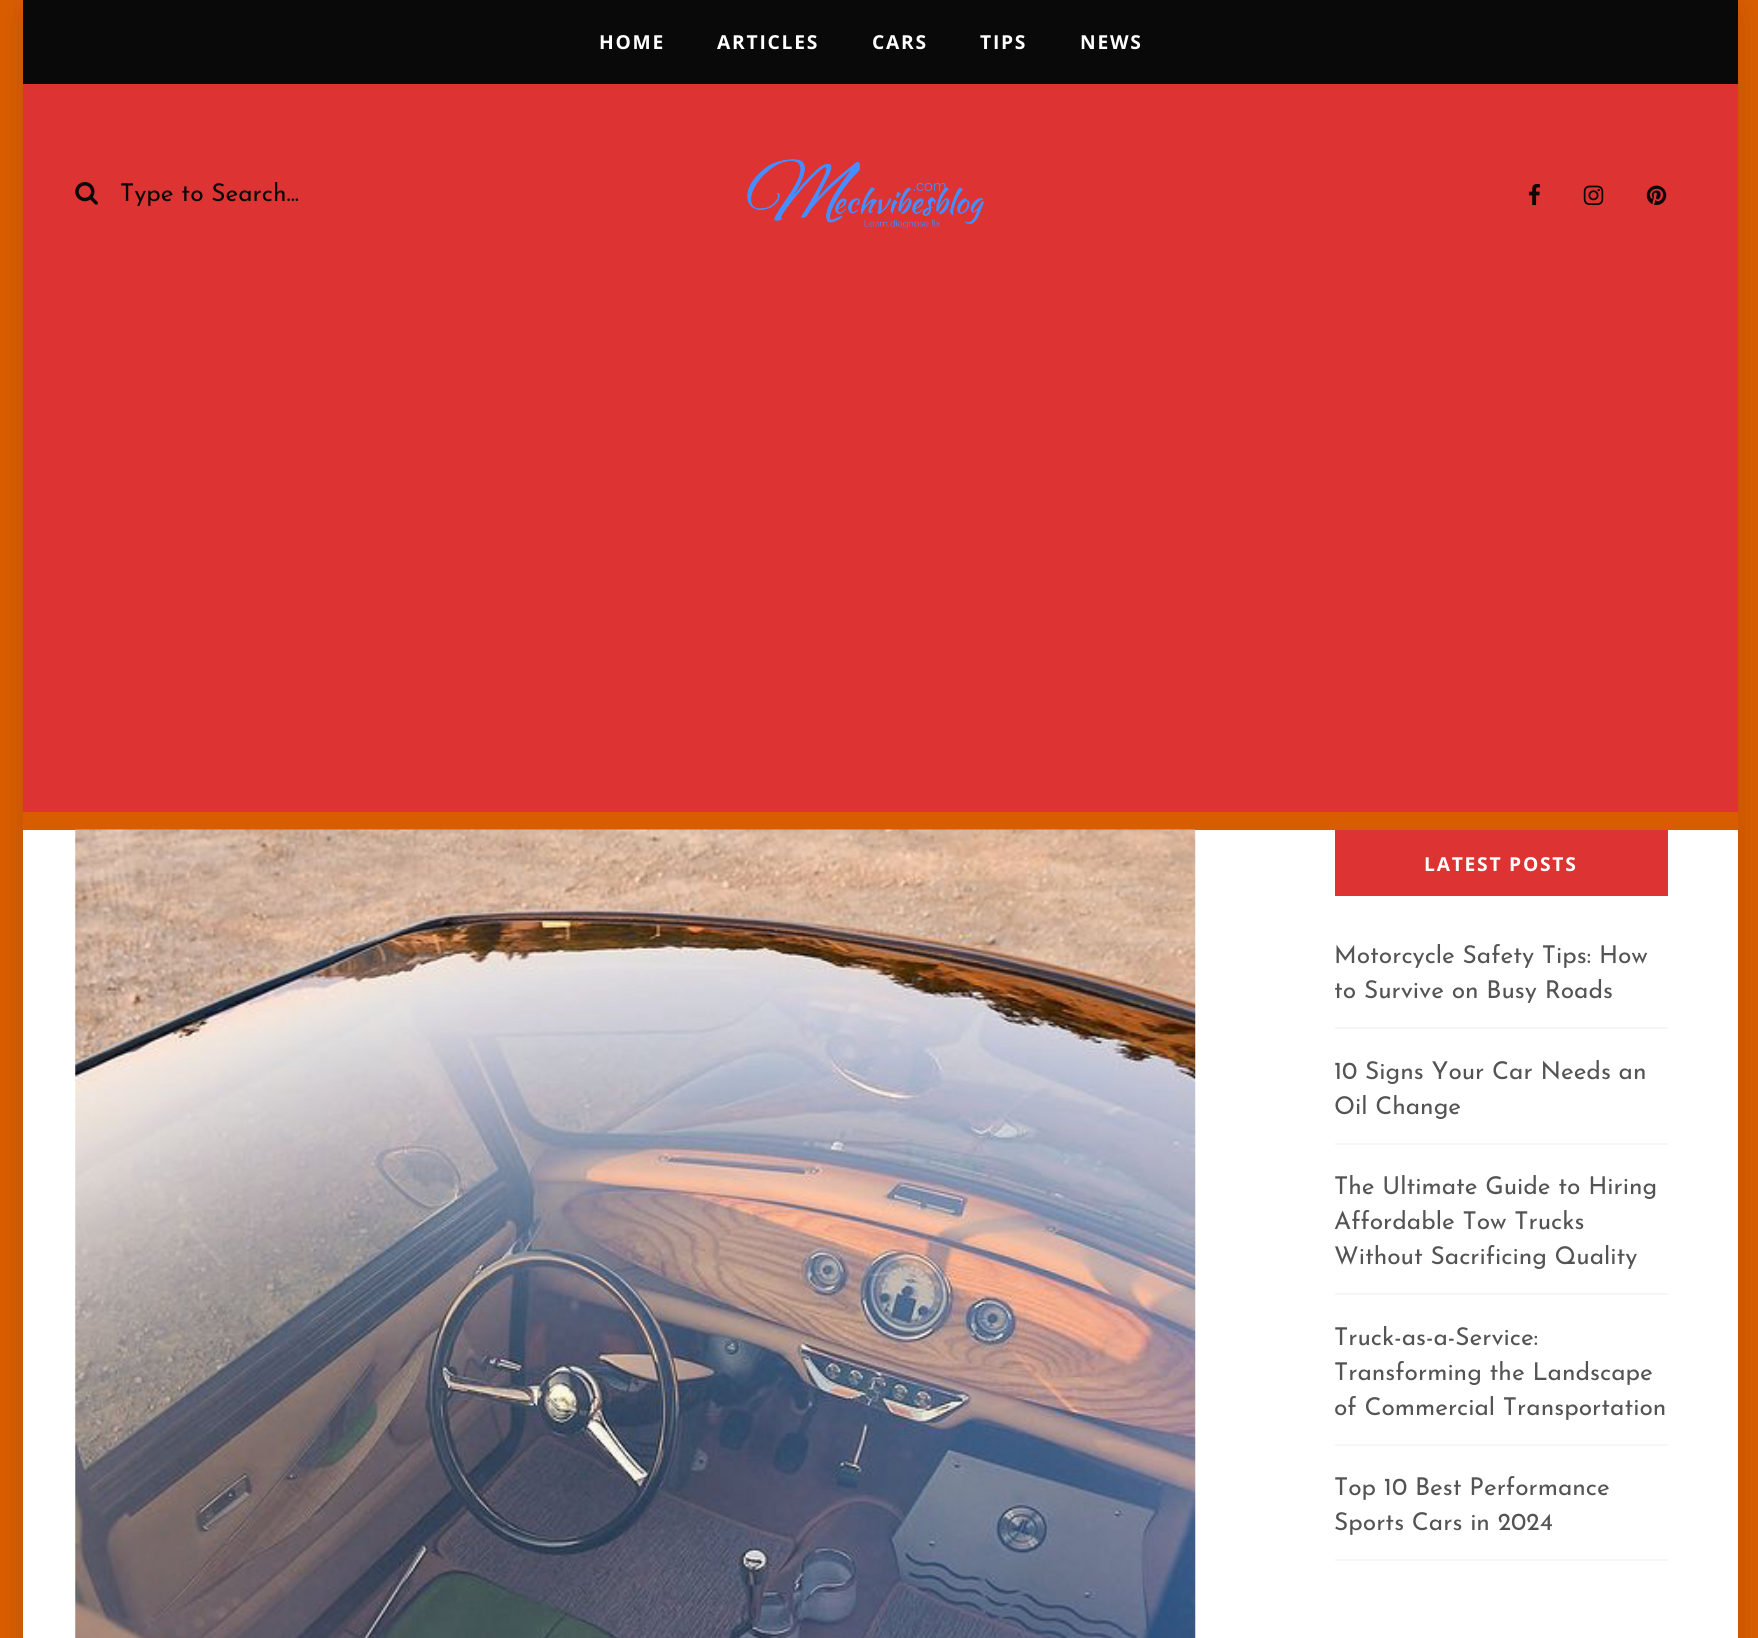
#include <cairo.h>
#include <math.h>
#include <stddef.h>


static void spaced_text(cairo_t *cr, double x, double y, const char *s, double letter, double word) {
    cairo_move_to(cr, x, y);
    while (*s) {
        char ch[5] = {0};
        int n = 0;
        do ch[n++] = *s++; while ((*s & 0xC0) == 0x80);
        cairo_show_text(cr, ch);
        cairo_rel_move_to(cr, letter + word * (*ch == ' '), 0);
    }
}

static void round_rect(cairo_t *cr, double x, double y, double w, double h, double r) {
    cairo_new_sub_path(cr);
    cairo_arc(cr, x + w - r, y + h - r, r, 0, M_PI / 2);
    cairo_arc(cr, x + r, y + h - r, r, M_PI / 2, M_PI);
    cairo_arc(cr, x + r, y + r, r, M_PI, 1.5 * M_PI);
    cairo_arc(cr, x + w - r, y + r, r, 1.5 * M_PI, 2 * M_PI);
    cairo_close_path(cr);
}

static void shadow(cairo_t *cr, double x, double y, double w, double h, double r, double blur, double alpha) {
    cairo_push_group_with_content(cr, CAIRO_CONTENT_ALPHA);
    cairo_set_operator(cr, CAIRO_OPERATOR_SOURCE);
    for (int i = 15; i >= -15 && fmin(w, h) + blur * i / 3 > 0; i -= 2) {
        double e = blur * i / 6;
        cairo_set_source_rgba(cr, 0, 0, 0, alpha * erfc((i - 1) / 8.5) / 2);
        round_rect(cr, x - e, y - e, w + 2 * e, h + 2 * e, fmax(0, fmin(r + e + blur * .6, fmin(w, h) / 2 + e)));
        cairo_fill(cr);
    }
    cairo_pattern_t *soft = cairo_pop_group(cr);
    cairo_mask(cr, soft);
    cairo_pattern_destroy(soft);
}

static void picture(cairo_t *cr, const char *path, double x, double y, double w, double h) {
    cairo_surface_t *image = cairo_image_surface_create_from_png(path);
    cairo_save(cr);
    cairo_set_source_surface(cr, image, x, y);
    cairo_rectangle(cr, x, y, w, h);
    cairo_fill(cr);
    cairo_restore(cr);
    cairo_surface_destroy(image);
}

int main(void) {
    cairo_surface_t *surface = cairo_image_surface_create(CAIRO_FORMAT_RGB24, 1758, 1638);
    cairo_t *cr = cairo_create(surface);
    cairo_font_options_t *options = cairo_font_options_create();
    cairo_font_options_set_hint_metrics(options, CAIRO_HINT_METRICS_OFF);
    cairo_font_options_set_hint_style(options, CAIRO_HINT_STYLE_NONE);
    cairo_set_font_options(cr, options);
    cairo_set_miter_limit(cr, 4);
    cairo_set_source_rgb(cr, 0.847, 0.365, 0);
    cairo_paint(cr);
    cairo_save(cr);
    cairo_set_fill_rule(cr, CAIRO_FILL_RULE_EVEN_ODD);
    cairo_new_path(cr);
    cairo_move_to(cr, 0, 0);
    cairo_line_to(cr, 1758, 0);
    cairo_line_to(cr, 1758, 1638);
    cairo_line_to(cr, 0, 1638);
    cairo_close_path(cr);
    cairo_move_to(cr, 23, 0);
    cairo_line_to(cr, 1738, 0);
    cairo_line_to(cr, 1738, 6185);
    cairo_line_to(cr, 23, 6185);
    cairo_close_path(cr);
    cairo_clip(cr);
    cairo_set_source_rgb(cr, 0.039, 0.039, 0.039);
    shadow(cr, 37, 14, 1687, 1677, 0, 17.5, 0.3);
    cairo_restore(cr);
    cairo_set_source_rgb(cr, 0.039, 0.039, 0.039);
    cairo_rectangle(cr, 23, 0, 1715, 84);
    cairo_fill(cr);
    cairo_select_font_face(cr, "Open Sans", CAIRO_FONT_SLANT_NORMAL, CAIRO_FONT_WEIGHT_BOLD);
    cairo_set_font_size(cr, 19.25);
    cairo_set_source_rgb(cr, 1, 1, 1);
    spaced_text(cr, 599, 49, "HOME", 1.75, 0);
    spaced_text(cr, 717, 49, "ARTICLES", 1.75, 0);
    spaced_text(cr, 872, 49, "CARS", 1.75, 0);
    spaced_text(cr, 980, 49, "TIPS", 1.75, 0);
    spaced_text(cr, 1080, 49, "NEWS", 1.75, 0);
    cairo_set_source_rgb(cr, 0.867, 0.2, 0.2);
    cairo_rectangle(cr, 23, 84, 1715, 728);
    cairo_fill(cr);
    picture(cr, "img1.png", 75, 182, 23, 23);
    cairo_select_font_face(cr, "Josefin Sans Thin", CAIRO_FONT_SLANT_NORMAL, CAIRO_FONT_WEIGHT_NORMAL);
    cairo_set_font_size(cr, 24.5);
    cairo_set_source_rgb(cr, 0.039, 0.039, 0.039);
    cairo_move_to(cr, 120, 201);
    cairo_show_text(cr, "Type to Search...");
    picture(cr, "img2.png", 747, 159, 237, 70);
    picture(cr, "img3.png", 1528, 183, 12, 23);
    picture(cr, "img4.png", 1583, 185, 21, 21);
    picture(cr, "img5.png", 1646, 185, 21, 21);
    cairo_set_source_rgb(cr, 1, 1, 1);
    cairo_rectangle(cr, 23, 830, 1715, 808);
    cairo_fill(cr);
    picture(cr, "img6.png", 75, 829, 1121, 809);
    cairo_set_source_rgb(cr, 0.867, 0.2, 0.2);
    cairo_rectangle(cr, 1335, 830, 333, 66);
    cairo_fill(cr);
    cairo_select_font_face(cr, "Open Sans", CAIRO_FONT_SLANT_NORMAL, CAIRO_FONT_WEIGHT_BOLD);
    cairo_set_font_size(cr, 19.25);
    cairo_set_source_rgb(cr, 1, 1, 1);
    spaced_text(cr, 1424, 871, "LATEST POSTS", 1.75, 0);
    cairo_set_source_rgb(cr, 0.961, 0.961, 0.961);
    cairo_rectangle(cr, 1335, 1027, 333, 2);
    cairo_fill(cr);
    cairo_select_font_face(cr, "Josefin Sans Thin", CAIRO_FONT_SLANT_NORMAL, CAIRO_FONT_WEIGHT_NORMAL);
    cairo_set_font_size(cr, 24.5);
    cairo_set_source_rgb(cr, 0.329, 0.329, 0.329);
    cairo_move_to(cr, 1334, 963);
    cairo_show_text(cr, "Motorcycle Safety Tips: How");
    cairo_move_to(cr, 1334, 998);
    cairo_show_text(cr, "to Survive on Busy Roads");
    cairo_set_source_rgb(cr, 0.961, 0.961, 0.961);
    cairo_rectangle(cr, 1335, 1143, 333, 2);
    cairo_fill(cr);
    cairo_set_source_rgb(cr, 0.329, 0.329, 0.329);
    cairo_move_to(cr, 1334, 1079);
    cairo_show_text(cr, "10 Signs Your Car Needs an");
    cairo_move_to(cr, 1334, 1114);
    cairo_show_text(cr, "Oil Change");
    cairo_set_source_rgb(cr, 0.961, 0.961, 0.961);
    cairo_rectangle(cr, 1335, 1293, 333, 2);
    cairo_fill(cr);
    cairo_set_source_rgb(cr, 0.329, 0.329, 0.329);
    cairo_move_to(cr, 1334, 1194);
    cairo_show_text(cr, "The Ultimate Guide to Hiring");
    cairo_move_to(cr, 1334, 1229);
    cairo_show_text(cr, "Affordable Tow Trucks");
    cairo_move_to(cr, 1334, 1264);
    cairo_show_text(cr, "Without Sacrificing Quality");
    cairo_set_source_rgb(cr, 0.961, 0.961, 0.961);
    cairo_rectangle(cr, 1335, 1444, 333, 2);
    cairo_fill(cr);
    cairo_set_source_rgb(cr, 0.329, 0.329, 0.329);
    cairo_move_to(cr, 1334, 1345);
    cairo_show_text(cr, "Truck-as-a-Service:");
    cairo_move_to(cr, 1334, 1380);
    cairo_show_text(cr, "Transforming the Landscape");
    cairo_move_to(cr, 1334, 1415);
    cairo_show_text(cr, "of Commercial Transportation");
    cairo_set_source_rgb(cr, 0.961, 0.961, 0.961);
    cairo_rectangle(cr, 1335, 1559, 333, 2);
    cairo_fill(cr);
    cairo_set_source_rgb(cr, 0.329, 0.329, 0.329);
    cairo_move_to(cr, 1334, 1495);
    cairo_show_text(cr, "Top 10 Best Performance");
    cairo_move_to(cr, 1334, 1530);
    cairo_show_text(cr, "Sports Cars in 2024");
    cairo_surface_write_to_png(surface, "page.png");
    cairo_font_options_destroy(options);
    cairo_destroy(cr);
    cairo_surface_destroy(surface);
    return 0;
}
